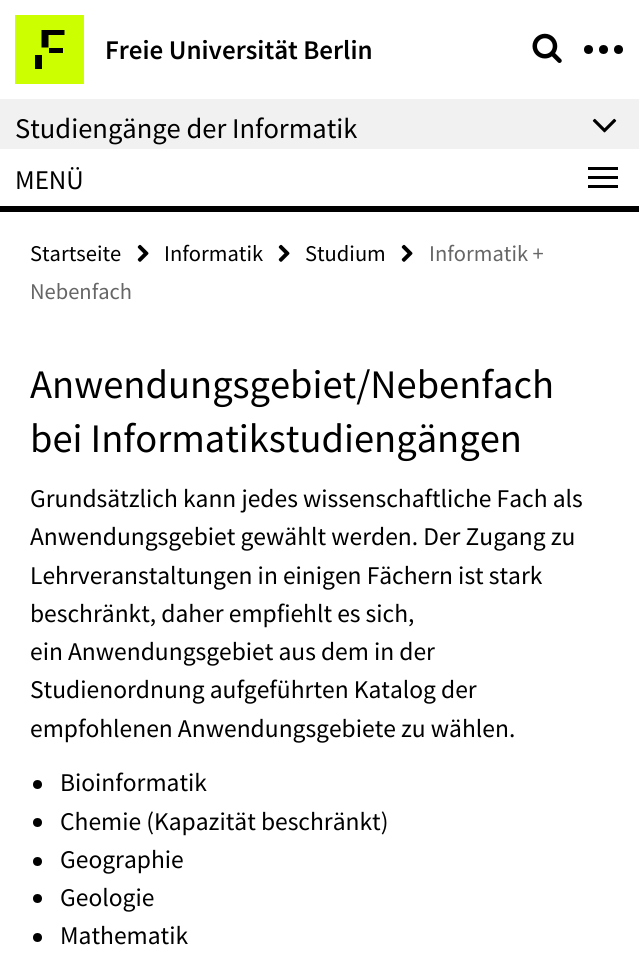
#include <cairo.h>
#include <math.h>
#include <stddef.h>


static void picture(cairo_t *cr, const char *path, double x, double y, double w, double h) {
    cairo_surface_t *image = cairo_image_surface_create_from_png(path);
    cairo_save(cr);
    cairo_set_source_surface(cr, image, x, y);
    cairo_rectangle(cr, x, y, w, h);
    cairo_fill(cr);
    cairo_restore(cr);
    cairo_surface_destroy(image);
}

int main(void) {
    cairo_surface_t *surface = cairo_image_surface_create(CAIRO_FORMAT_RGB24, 639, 969);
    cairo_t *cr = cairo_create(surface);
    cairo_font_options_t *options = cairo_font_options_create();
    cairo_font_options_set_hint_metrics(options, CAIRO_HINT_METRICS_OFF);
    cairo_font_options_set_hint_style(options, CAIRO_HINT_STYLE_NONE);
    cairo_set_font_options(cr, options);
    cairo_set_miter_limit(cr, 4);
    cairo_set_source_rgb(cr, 1, 1, 1);
    cairo_paint(cr);
    cairo_set_source_rgb(cr, 0.8, 1, 0);
    cairo_rectangle(cr, 15, 15, 69, 69);
    cairo_fill(cr);
    cairo_set_source_rgb(cr, 0, 0, 0);
    cairo_new_path(cr);
    cairo_move_to(cr, 41.5, 30);
    cairo_line_to(cr, 64.5, 30);
    cairo_line_to(cr, 64.5, 35);
    cairo_line_to(cr, 48.5, 35);
    cairo_line_to(cr, 48.5, 47.5);
    cairo_line_to(cr, 41.5, 47.5);
    cairo_close_path(cr);
    cairo_fill(cr);
    cairo_rectangle(cr, 49, 48, 14, 5);
    cairo_fill(cr);
    cairo_rectangle(cr, 35, 55, 7, 14);
    cairo_fill(cr);
    cairo_select_font_face(cr, "Source Sans Pro SemiBold", CAIRO_FONT_SLANT_NORMAL, CAIRO_FONT_WEIGHT_NORMAL);
    cairo_set_font_size(cr, 27);
    cairo_move_to(cr, 105, 59);
    cairo_show_text(cr, "Freie Universität Berlin");
    picture(cr, "img1.png", 532, 33, 30, 30);
    cairo_arc(cr, 588.5, 49.5, 4.5, 0, 2 * M_PI);
    cairo_fill(cr);
    cairo_arc(cr, 603.5, 49.5, 4.5, 0, 2 * M_PI);
    cairo_fill(cr);
    cairo_arc(cr, 618.5, 49.5, 4.5, 0, 2 * M_PI);
    cairo_fill(cr);
    cairo_set_source_rgb(cr, 0.945, 0.945, 0.945);
    cairo_rectangle(cr, 0, 99, 639, 50);
    cairo_fill(cr);
    cairo_select_font_face(cr, "Source Sans Pro", CAIRO_FONT_SLANT_NORMAL, CAIRO_FONT_WEIGHT_NORMAL);
    cairo_set_font_size(cr, 28.5);
    cairo_set_source_rgb(cr, 0, 0, 0);
    cairo_move_to(cr, 15, 138);
    cairo_show_text(cr, "Studiengänge der Informatik");
    picture(cr, "img2.png", 592, 118, 25, 15);
    cairo_rectangle(cr, 0, 206, 639, 6);
    cairo_fill(cr);
    cairo_set_font_size(cr, 27);
    cairo_move_to(cr, 15, 189);
    cairo_show_text(cr, "MENÜ");
    cairo_rectangle(cr, 588, 167, 30, 3);
    cairo_fill(cr);
    cairo_rectangle(cr, 588, 176, 30, 3);
    cairo_fill(cr);
    cairo_rectangle(cr, 588, 185, 30, 3);
    cairo_fill(cr);
    cairo_set_font_size(cr, 22.5);
    cairo_move_to(cr, 30, 261);
    cairo_show_text(cr, "Startseite");
    picture(cr, "img3.png", 137, 244, 12, 18);
    cairo_move_to(cr, 164, 261);
    cairo_show_text(cr, "Informatik");
    picture(cr, "img3.png", 278, 244, 12, 18);
    cairo_move_to(cr, 305, 261);
    cairo_show_text(cr, "Studium");
    picture(cr, "img3.png", 401, 244, 12, 18);
    cairo_set_source_rgb(cr, 0.4, 0.4, 0.4);
    cairo_move_to(cr, 429, 261);
    cairo_show_text(cr, "Informatik +");
    cairo_move_to(cr, 30, 299);
    cairo_show_text(cr, "Nebenfach");
    cairo_set_font_size(cr, 40.5);
    cairo_set_source_rgb(cr, 0, 0, 0);
    cairo_move_to(cr, 30, 398);
    cairo_show_text(cr, "Anwendungsgebiet/Nebenfach");
    cairo_move_to(cr, 30, 452);
    cairo_show_text(cr, "bei Informatikstudiengängen");
    cairo_set_font_size(cr, 25.5);
    cairo_move_to(cr, 30, 507);
    cairo_show_text(cr, "Grundsätzlich kann jedes wissenschaftliche Fach als");
    cairo_move_to(cr, 30, 545);
    cairo_show_text(cr, "Anwendungsgebiet gewählt werden. Der Zugang zu");
    cairo_move_to(cr, 30, 584);
    cairo_show_text(cr, "Lehrveranstaltungen in einigen Fächern ist stark");
    cairo_move_to(cr, 30, 622);
    cairo_show_text(cr, "beschränkt, daher empfiehlt es sich,");
    cairo_move_to(cr, 30, 660);
    cairo_show_text(cr, "ein Anwendungsgebiet aus dem in der");
    cairo_move_to(cr, 30, 698);
    cairo_show_text(cr, "Studienordnung aufgeführten Katalog der");
    cairo_move_to(cr, 30, 737);
    cairo_show_text(cr, "empfohlenen Anwendungsgebiete zu wählen.");
    cairo_new_path(cr);
    cairo_arc(cr, 37.5, 784.5, 4.5, 0, 2 * M_PI);
    cairo_fill(cr);
    cairo_move_to(cr, 60, 791);
    cairo_show_text(cr, "Bioinformatik");
    cairo_new_path(cr);
    cairo_arc(cr, 37.5, 822.5, 4.5, 0, 2 * M_PI);
    cairo_fill(cr);
    cairo_move_to(cr, 60, 830);
    cairo_show_text(cr, "Chemie (Kapazität beschränkt)");
    cairo_new_path(cr);
    cairo_arc(cr, 37.5, 861.5, 4.5, 0, 2 * M_PI);
    cairo_fill(cr);
    cairo_move_to(cr, 60, 868);
    cairo_show_text(cr, "Geographie");
    cairo_new_path(cr);
    cairo_arc(cr, 37.5, 898.5, 4.5, 0, 2 * M_PI);
    cairo_fill(cr);
    cairo_move_to(cr, 60, 906);
    cairo_show_text(cr, "Geologie");
    cairo_new_path(cr);
    cairo_arc(cr, 37.5, 937.5, 4.5, 0, 2 * M_PI);
    cairo_fill(cr);
    cairo_move_to(cr, 60, 944);
    cairo_show_text(cr, "Mathematik");
    cairo_surface_write_to_png(surface, "page.png");
    cairo_font_options_destroy(options);
    cairo_destroy(cr);
    cairo_surface_destroy(surface);
    return 0;
}
